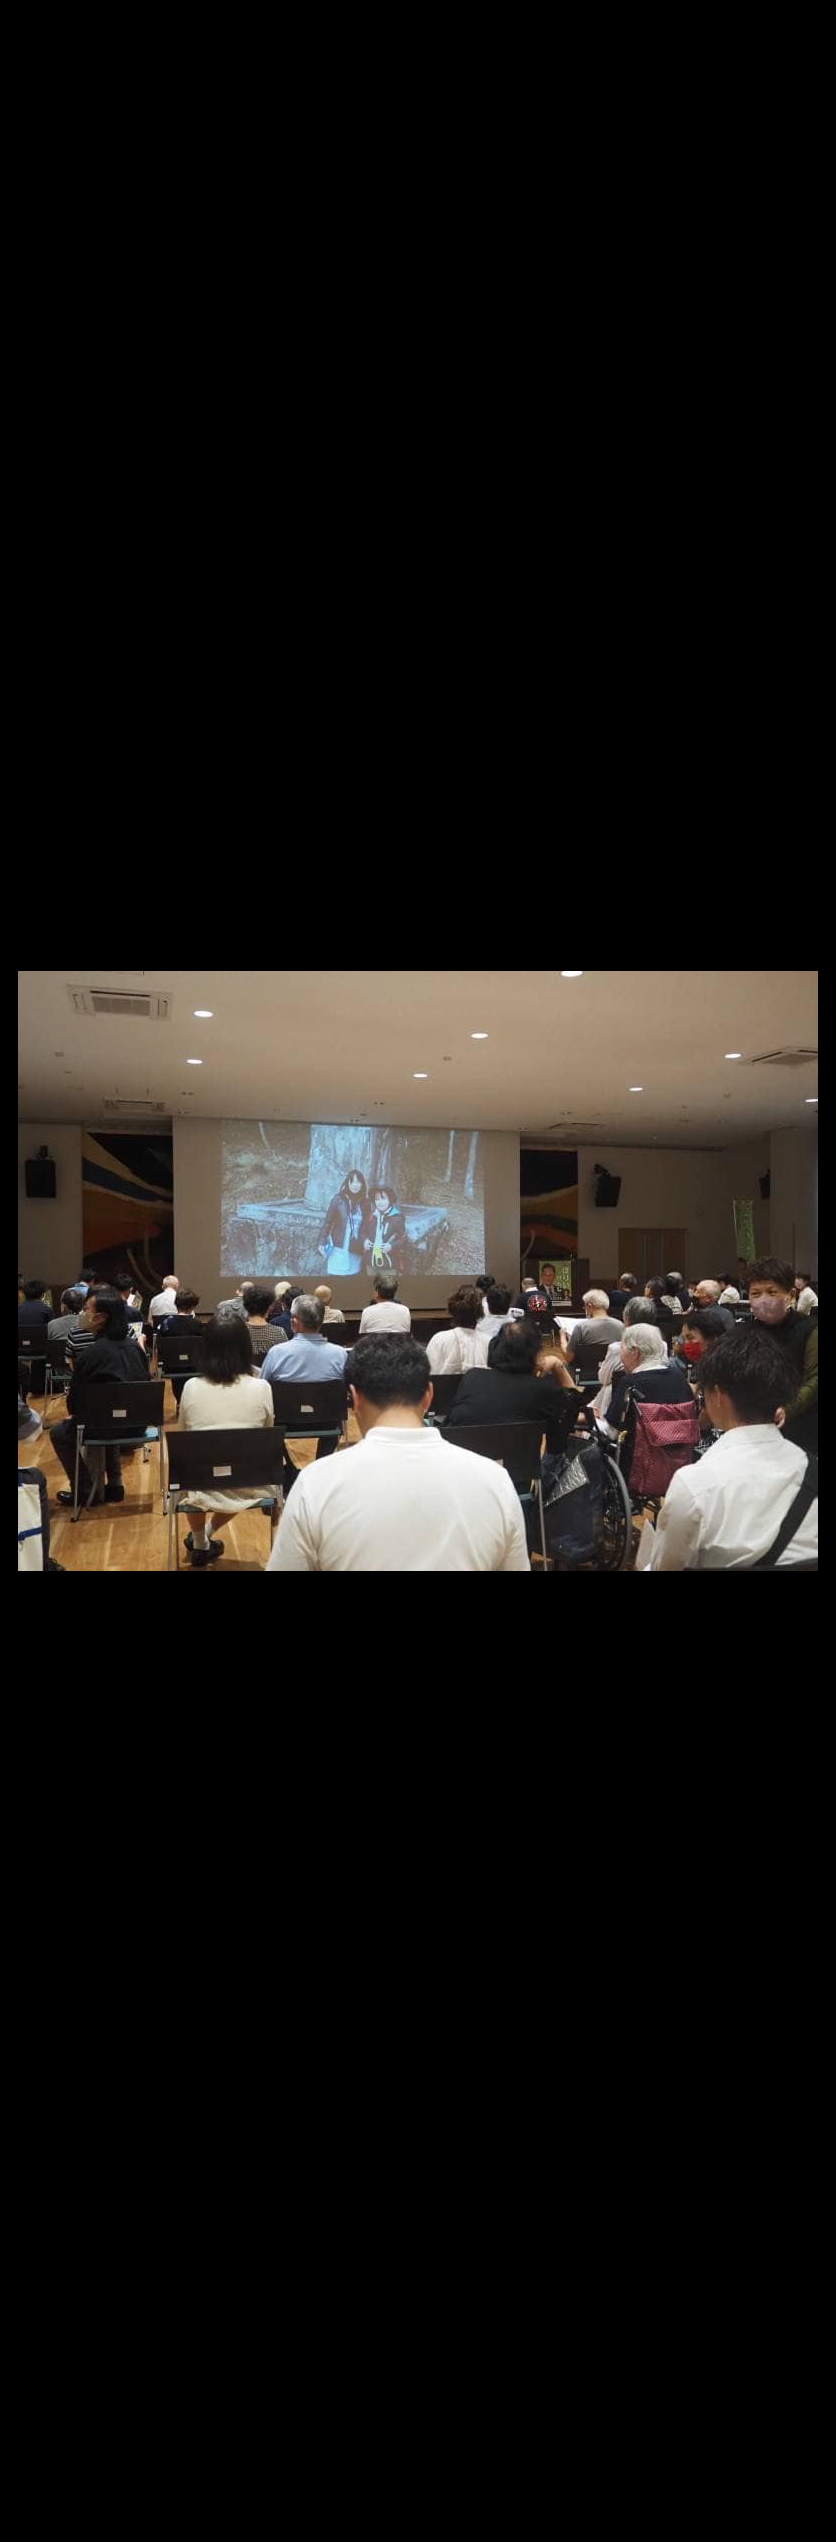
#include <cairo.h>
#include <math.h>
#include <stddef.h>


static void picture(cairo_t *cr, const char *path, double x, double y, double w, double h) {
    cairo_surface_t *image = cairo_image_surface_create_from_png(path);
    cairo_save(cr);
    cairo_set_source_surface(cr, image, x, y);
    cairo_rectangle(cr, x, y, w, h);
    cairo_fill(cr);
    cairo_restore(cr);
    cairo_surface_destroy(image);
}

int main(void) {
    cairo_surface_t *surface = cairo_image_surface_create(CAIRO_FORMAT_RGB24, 836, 2542);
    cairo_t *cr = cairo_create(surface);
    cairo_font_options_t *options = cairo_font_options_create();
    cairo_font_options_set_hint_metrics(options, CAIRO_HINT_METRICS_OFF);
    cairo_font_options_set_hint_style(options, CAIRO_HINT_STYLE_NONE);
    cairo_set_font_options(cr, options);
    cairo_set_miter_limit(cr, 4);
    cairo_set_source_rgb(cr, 0, 0, 0);
    cairo_paint(cr);
    picture(cr, "img1.png", 18, 971, 800, 600);
    cairo_surface_write_to_png(surface, "page.png");
    cairo_font_options_destroy(options);
    cairo_destroy(cr);
    cairo_surface_destroy(surface);
    return 0;
}
